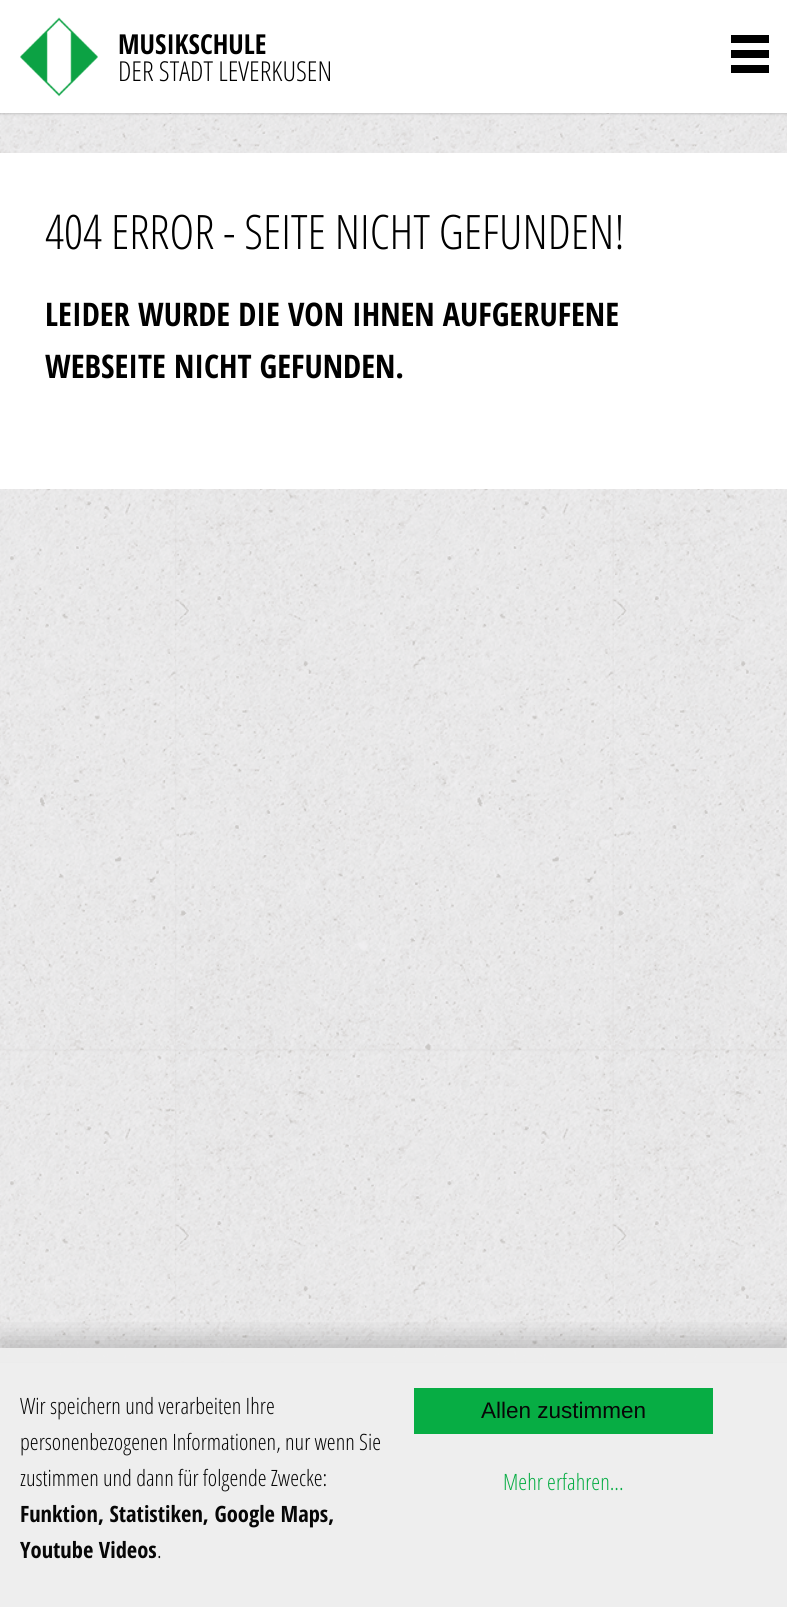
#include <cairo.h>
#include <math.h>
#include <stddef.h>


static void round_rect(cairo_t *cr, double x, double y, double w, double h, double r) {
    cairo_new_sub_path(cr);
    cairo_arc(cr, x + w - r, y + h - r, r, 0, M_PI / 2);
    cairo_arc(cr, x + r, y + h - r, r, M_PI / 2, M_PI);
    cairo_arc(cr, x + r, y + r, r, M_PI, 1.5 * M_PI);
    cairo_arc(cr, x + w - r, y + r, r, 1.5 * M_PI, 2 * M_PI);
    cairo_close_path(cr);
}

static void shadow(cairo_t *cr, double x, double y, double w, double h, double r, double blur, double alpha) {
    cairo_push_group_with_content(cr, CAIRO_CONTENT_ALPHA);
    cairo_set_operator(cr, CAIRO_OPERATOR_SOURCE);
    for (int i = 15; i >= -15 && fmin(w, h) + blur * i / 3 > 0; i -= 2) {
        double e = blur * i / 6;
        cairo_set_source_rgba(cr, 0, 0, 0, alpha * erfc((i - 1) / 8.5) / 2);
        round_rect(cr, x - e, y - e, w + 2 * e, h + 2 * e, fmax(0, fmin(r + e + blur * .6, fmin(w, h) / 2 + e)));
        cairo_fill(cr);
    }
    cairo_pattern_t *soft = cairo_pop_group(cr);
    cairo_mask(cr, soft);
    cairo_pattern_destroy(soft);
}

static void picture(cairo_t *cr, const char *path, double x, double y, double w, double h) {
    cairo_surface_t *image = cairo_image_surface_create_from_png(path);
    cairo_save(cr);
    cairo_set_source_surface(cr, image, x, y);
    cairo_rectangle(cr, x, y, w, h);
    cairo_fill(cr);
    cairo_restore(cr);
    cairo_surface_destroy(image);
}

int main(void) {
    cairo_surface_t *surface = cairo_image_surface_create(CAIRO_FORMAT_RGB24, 787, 1607);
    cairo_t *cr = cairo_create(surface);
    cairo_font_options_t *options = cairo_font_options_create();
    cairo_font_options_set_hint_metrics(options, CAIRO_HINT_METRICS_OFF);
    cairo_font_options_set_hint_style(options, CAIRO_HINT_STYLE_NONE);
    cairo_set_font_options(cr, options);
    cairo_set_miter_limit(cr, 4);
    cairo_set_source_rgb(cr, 1, 1, 1);
    cairo_paint(cr);
    cairo_set_source_rgb(cr, 0.886, 0.886, 0.886);
    cairo_rectangle(cr, 0, 1362, 787, 1);
    cairo_fill(cr);
    picture(cr, "img2.png", 0, 113, 787, 1250);
    cairo_set_source_rgb(cr, 0, 0, 0);
    shadow(cr, -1, -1, 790, 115, 0, 1, 0.16);
    cairo_set_source_rgb(cr, 1, 1, 1);
    cairo_rectangle(cr, 0, 0, 787, 113);
    cairo_fill(cr);
    picture(cr, "img1.png", 20, 17, 78, 80);
    cairo_select_font_face(cr, "Open Sans Condensed", CAIRO_FONT_SLANT_NORMAL, CAIRO_FONT_WEIGHT_BOLD);
    cairo_set_font_size(cr, 27.5);
    cairo_set_source_rgb(cr, 0, 0, 0);
    cairo_move_to(cr, 118, 54);
    cairo_show_text(cr, "MUSIKSCHULE");
    cairo_select_font_face(cr, "Open Sans Light", CAIRO_FONT_SLANT_NORMAL, CAIRO_FONT_WEIGHT_NORMAL);
    cairo_move_to(cr, 118, 81);
    cairo_show_text(cr, "DER STADT LEVERKUSEN");
    cairo_rectangle(cr, 731, 35, 38, 8);
    cairo_fill(cr);
    cairo_rectangle(cr, 731, 50, 38, 8);
    cairo_fill(cr);
    cairo_rectangle(cr, 731, 65, 38, 8);
    cairo_fill(cr);
    cairo_set_source_rgb(cr, 1, 1, 1);
    cairo_rectangle(cr, 0, 153, 787, 336);
    cairo_fill(cr);
    cairo_set_font_size(cr, 47.5);
    cairo_set_source_rgb(cr, 0, 0, 0);
    cairo_move_to(cr, 45, 249);
    cairo_show_text(cr, "404 ERROR - SEITE NICHT GEFUNDEN!");
    cairo_select_font_face(cr, "Open Sans Condensed", CAIRO_FONT_SLANT_NORMAL, CAIRO_FONT_WEIGHT_BOLD);
    cairo_set_font_size(cr, 32.5);
    cairo_move_to(cr, 45, 326);
    cairo_show_text(cr, "LEIDER WURDE DIE VON IHNEN AUFGERUFENE");
    cairo_move_to(cr, 45, 378);
    cairo_show_text(cr, "WEBSEITE NICHT GEFUNDEN.");
    cairo_save(cr);
    cairo_rectangle(cr, 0, 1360, 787, 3);
    cairo_clip(cr);
    cairo_set_source_rgb(cr, 0, 0, 0);
    shadow(cr, -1, 1361, 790, 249, 0, 1, 0.16);
    cairo_restore(cr);
    cairo_save(cr);
    cairo_rectangle(cr, 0, 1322, 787, 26);
    cairo_clip(cr);
    cairo_set_source_rgb(cr, 0, 0, 0);
    shadow(cr, 0, 1338, 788, 260, 0, 12.5, 0.19);
    cairo_restore(cr);
    cairo_set_source_rgba(cr, 0.933, 0.933, 0.933, 0.97);
    cairo_rectangle(cr, 0, 1348, 787, 259);
    cairo_fill(cr);
    cairo_select_font_face(cr, "Open Sans Light", CAIRO_FONT_SLANT_NORMAL, CAIRO_FONT_WEIGHT_NORMAL);
    cairo_set_font_size(cr, 22.5);
    cairo_set_source_rgb(cr, 0.031, 0.031, 0.031);
    cairo_move_to(cr, 20, 1414);
    cairo_show_text(cr, "Wir speichern und verarbeiten Ihre");
    cairo_move_to(cr, 20, 1450);
    cairo_show_text(cr, "personenbezogenen Informationen, nur wenn Sie");
    cairo_move_to(cr, 20, 1486);
    cairo_show_text(cr, "zustimmen und dann für folgende Zwecke:");
    cairo_select_font_face(cr, "Open Sans Condensed", CAIRO_FONT_SLANT_NORMAL, CAIRO_FONT_WEIGHT_BOLD);
    cairo_move_to(cr, 20, 1522);
    cairo_show_text(cr, "Funktion, Statistiken, Google Maps,");
    cairo_move_to(cr, 20, 1558);
    cairo_show_text(cr, "Youtube Videos");
    cairo_select_font_face(cr, "Open Sans Light", CAIRO_FONT_SLANT_NORMAL, CAIRO_FONT_WEIGHT_NORMAL);
    cairo_move_to(cr, 157, 1558);
    cairo_show_text(cr, ".");
    cairo_set_source_rgb(cr, 0.031, 0.678, 0.267);
    cairo_rectangle(cr, 414, 1388, 299, 46);
    cairo_fill(cr);
    cairo_select_font_face(cr, "Liberation Sans", CAIRO_FONT_SLANT_NORMAL, CAIRO_FONT_WEIGHT_NORMAL);
    cairo_set_source_rgb(cr, 0.031, 0.031, 0.031);
    cairo_move_to(cr, 481, 1418);
    cairo_show_text(cr, "Allen zustimmen");
    cairo_select_font_face(cr, "Open Sans Light", CAIRO_FONT_SLANT_NORMAL, CAIRO_FONT_WEIGHT_NORMAL);
    cairo_set_source_rgb(cr, 0.031, 0.678, 0.267);
    cairo_move_to(cr, 503, 1490);
    cairo_show_text(cr, "Mehr erfahren...");
    cairo_surface_write_to_png(surface, "page.png");
    cairo_font_options_destroy(options);
    cairo_destroy(cr);
    cairo_surface_destroy(surface);
    return 0;
}
